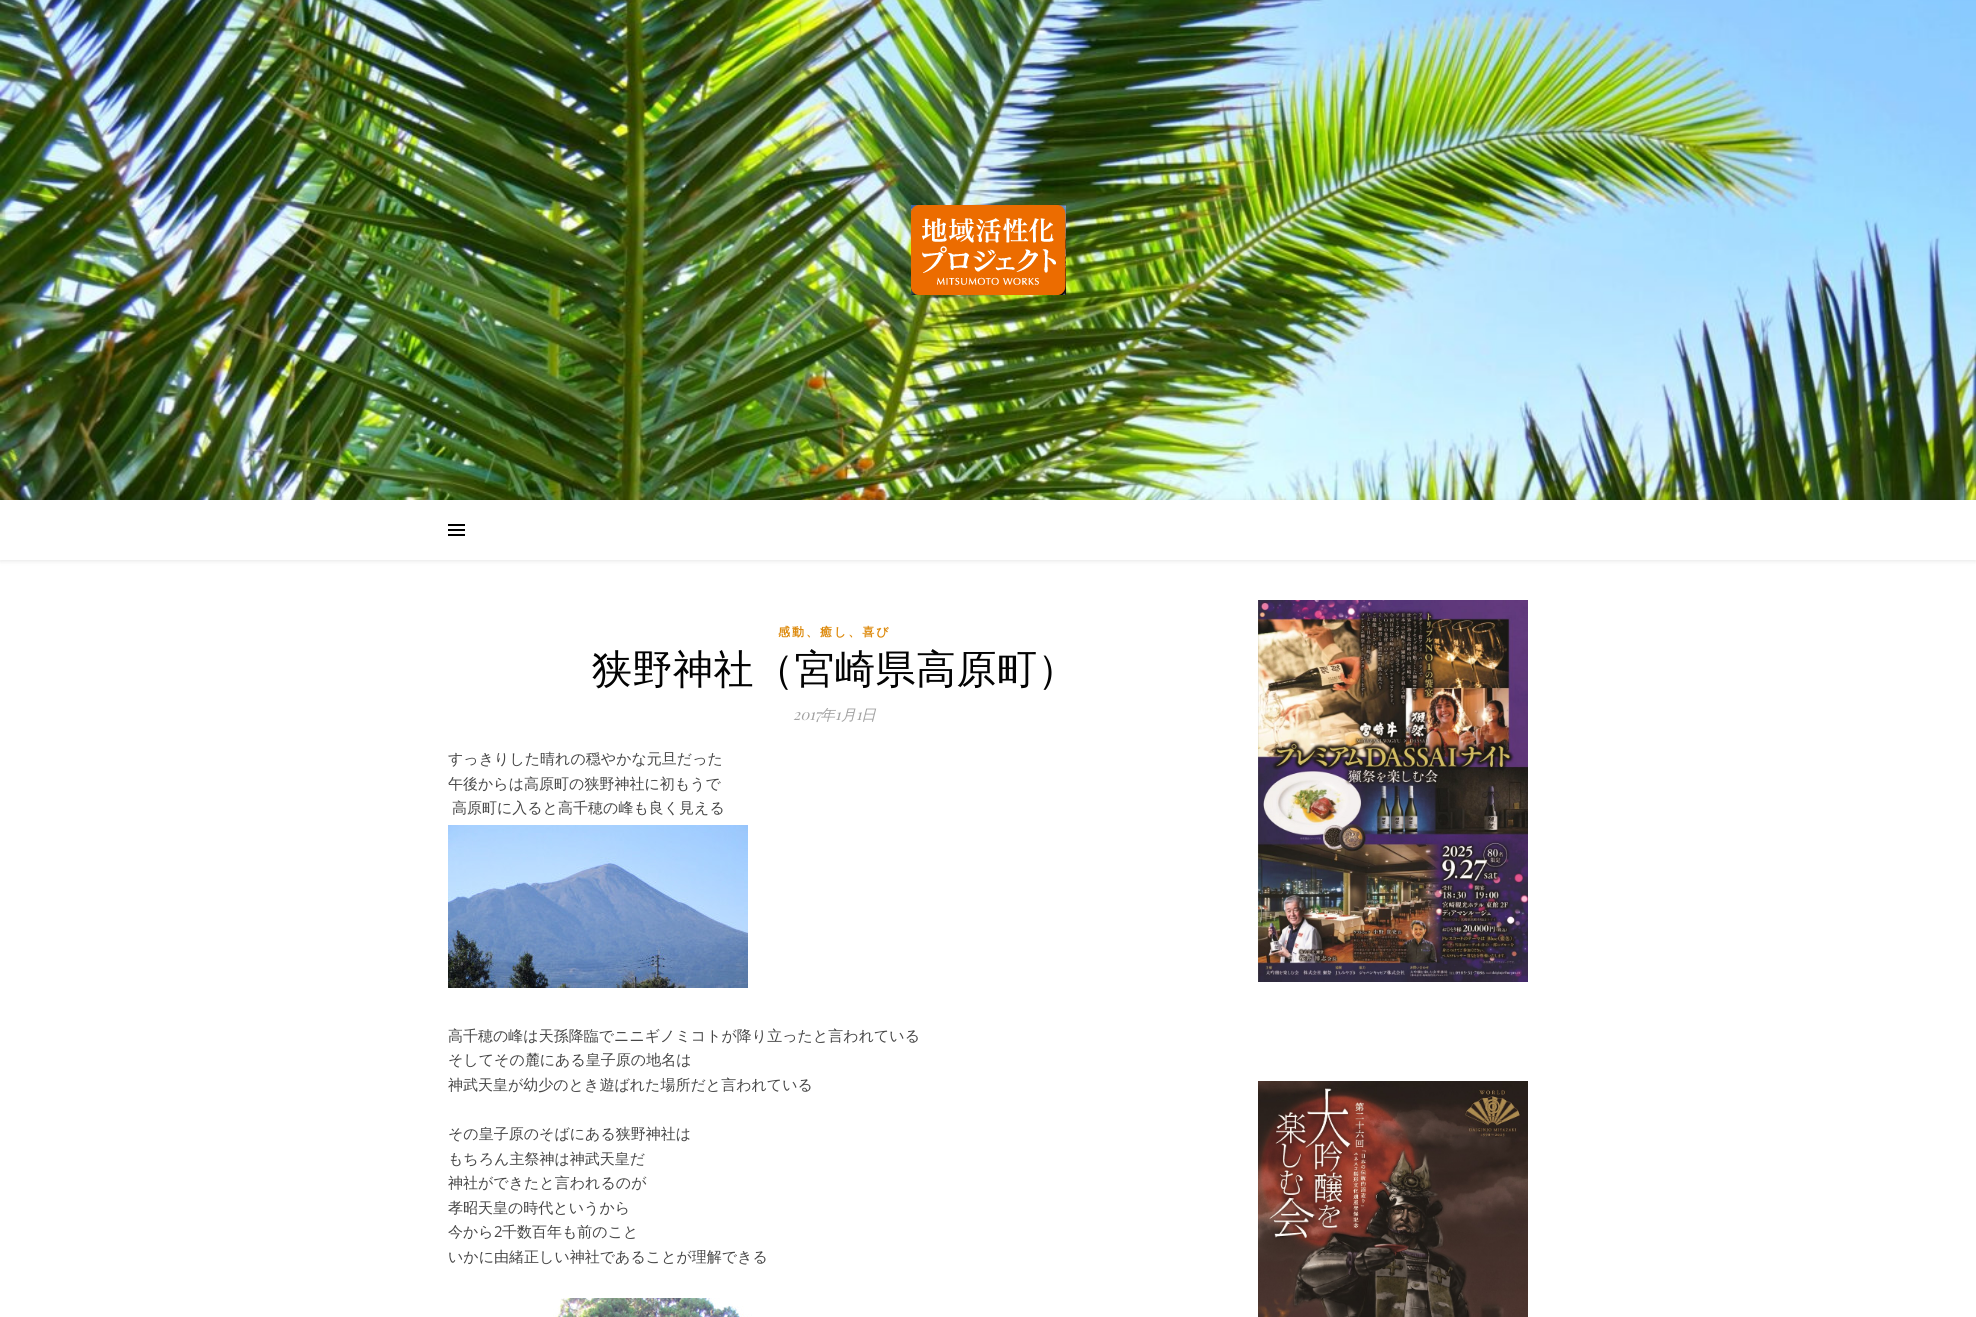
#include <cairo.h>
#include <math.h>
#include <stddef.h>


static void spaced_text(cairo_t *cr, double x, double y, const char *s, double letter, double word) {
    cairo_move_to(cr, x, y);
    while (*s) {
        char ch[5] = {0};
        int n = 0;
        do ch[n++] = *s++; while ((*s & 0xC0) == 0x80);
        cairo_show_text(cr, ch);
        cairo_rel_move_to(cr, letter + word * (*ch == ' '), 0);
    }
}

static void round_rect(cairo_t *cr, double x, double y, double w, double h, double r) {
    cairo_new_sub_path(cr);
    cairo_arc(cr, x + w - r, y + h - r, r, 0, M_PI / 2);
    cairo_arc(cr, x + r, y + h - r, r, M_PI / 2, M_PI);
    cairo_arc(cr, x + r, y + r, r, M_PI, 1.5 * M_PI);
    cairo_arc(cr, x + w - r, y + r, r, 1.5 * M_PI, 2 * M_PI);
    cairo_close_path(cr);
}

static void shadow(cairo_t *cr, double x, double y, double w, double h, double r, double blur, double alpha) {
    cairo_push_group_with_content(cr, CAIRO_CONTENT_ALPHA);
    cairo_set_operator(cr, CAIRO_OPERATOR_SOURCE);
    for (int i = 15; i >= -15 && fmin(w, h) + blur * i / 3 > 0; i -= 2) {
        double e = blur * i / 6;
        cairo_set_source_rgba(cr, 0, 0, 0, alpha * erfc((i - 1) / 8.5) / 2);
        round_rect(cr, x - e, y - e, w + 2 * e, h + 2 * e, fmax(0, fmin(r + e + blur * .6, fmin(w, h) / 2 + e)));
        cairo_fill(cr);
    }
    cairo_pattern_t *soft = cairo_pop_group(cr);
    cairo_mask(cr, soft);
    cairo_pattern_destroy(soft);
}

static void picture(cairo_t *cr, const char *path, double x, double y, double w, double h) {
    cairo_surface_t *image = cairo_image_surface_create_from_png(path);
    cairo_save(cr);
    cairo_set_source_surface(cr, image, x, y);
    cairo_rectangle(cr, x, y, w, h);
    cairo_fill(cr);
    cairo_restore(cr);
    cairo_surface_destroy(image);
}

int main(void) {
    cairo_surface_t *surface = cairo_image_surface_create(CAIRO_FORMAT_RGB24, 1976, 1317);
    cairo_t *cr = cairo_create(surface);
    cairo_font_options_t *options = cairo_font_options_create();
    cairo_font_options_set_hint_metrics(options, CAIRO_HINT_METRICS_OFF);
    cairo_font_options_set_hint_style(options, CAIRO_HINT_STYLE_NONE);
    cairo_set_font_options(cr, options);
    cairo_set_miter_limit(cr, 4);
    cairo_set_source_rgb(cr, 1, 1, 1);
    cairo_paint(cr);
    picture(cr, "img1.png", 0, 0, 1976, 500);
    picture(cr, "img2.png", 911, 205, 155, 90);
    cairo_save(cr);
    cairo_set_fill_rule(cr, CAIRO_FILL_RULE_EVEN_ODD);
    cairo_new_path(cr);
    cairo_move_to(cr, 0, 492);
    cairo_line_to(cr, 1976, 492);
    cairo_line_to(cr, 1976, 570);
    cairo_line_to(cr, 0, 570);
    cairo_close_path(cr);
    cairo_move_to(cr, 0, 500);
    cairo_line_to(cr, 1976, 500);
    cairo_line_to(cr, 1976, 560);
    cairo_line_to(cr, 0, 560);
    cairo_close_path(cr);
    cairo_clip(cr);
    cairo_set_source_rgb(cr, 0, 0, 0);
    shadow(cr, 0, 501, 1976, 60, 0, 2.5, 0.1);
    cairo_restore(cr);
    cairo_set_source_rgb(cr, 0, 0, 0);
    cairo_rectangle(cr, 448, 524, 17, 2);
    cairo_fill(cr);
    cairo_rectangle(cr, 448, 529, 17, 2);
    cairo_fill(cr);
    cairo_rectangle(cr, 448, 534, 17, 2);
    cairo_fill(cr);
    cairo_select_font_face(cr, "WenQuanYi Zen Hei", CAIRO_FONT_SLANT_NORMAL, CAIRO_FONT_WEIGHT_BOLD);
    cairo_set_font_size(cr, 12);
    cairo_set_source_rgb(cr, 0.867, 0.541, 0.051);
    spaced_text(cr, 778, 636, "感動、癒し、喜び", 2, 0);
    cairo_select_font_face(cr, "WenQuanYi Zen Hei Medium", CAIRO_FONT_SLANT_NORMAL, CAIRO_FONT_WEIGHT_NORMAL);
    cairo_set_font_size(cr, 40);
    cairo_set_source_rgb(cr, 0.012, 0.012, 0.012);
    spaced_text(cr, 592, 683, "狭野神社（宮崎県高原町）", 0.5, 0);
    cairo_select_font_face(cr, "Playfair Display", CAIRO_FONT_SLANT_ITALIC, CAIRO_FONT_WEIGHT_NORMAL);
    cairo_set_font_size(cr, 15);
    cairo_set_source_rgb(cr, 0.631, 0.631, 0.631);
    cairo_move_to(cr, 793, 720);
    cairo_show_text(cr, "2017");
    cairo_select_font_face(cr, "WenQuanYi Zen Hei Medium", CAIRO_FONT_SLANT_ITALIC, CAIRO_FONT_WEIGHT_NORMAL);
    cairo_move_to(cr, 820, 720);
    cairo_show_text(cr, "年");
    cairo_select_font_face(cr, "Playfair Display", CAIRO_FONT_SLANT_ITALIC, CAIRO_FONT_WEIGHT_NORMAL);
    cairo_move_to(cr, 835, 720);
    cairo_show_text(cr, "1");
    cairo_select_font_face(cr, "WenQuanYi Zen Hei Medium", CAIRO_FONT_SLANT_ITALIC, CAIRO_FONT_WEIGHT_NORMAL);
    cairo_move_to(cr, 841, 720);
    cairo_show_text(cr, "月");
    cairo_select_font_face(cr, "Playfair Display", CAIRO_FONT_SLANT_ITALIC, CAIRO_FONT_WEIGHT_NORMAL);
    cairo_move_to(cr, 856, 720);
    cairo_show_text(cr, "1");
    cairo_select_font_face(cr, "WenQuanYi Zen Hei Medium", CAIRO_FONT_SLANT_ITALIC, CAIRO_FONT_WEIGHT_NORMAL);
    cairo_move_to(cr, 861, 720);
    cairo_show_text(cr, "日");
    cairo_select_font_face(cr, "WenQuanYi Zen Hei Medium", CAIRO_FONT_SLANT_NORMAL, CAIRO_FONT_WEIGHT_NORMAL);
    cairo_set_source_rgb(cr, 0.275, 0.275, 0.275);
    cairo_move_to(cr, 448, 764);
    cairo_show_text(cr, "すっきりした晴れの穏やかな元旦だった");
    cairo_move_to(cr, 448, 789);
    cairo_show_text(cr, "午後からは高原町の狭野神社に初もうで");
    cairo_move_to(cr, 452, 813);
    cairo_show_text(cr, "高原町に入ると高千穂の峰も良く見える");
    picture(cr, "img3.png", 448, 825, 300, 163);
    cairo_move_to(cr, 448, 1041);
    cairo_show_text(cr, "高千穂の峰は天孫降臨でニニギノミコトが降り立ったと言われている");
    cairo_move_to(cr, 448, 1065);
    cairo_show_text(cr, "そしてその麓にある皇子原の地名は");
    cairo_move_to(cr, 448, 1090);
    cairo_show_text(cr, "神武天皇が幼少のとき遊ばれた場所だと言われている");
    cairo_move_to(cr, 448, 1139);
    cairo_show_text(cr, "その皇子原のそばにある狭野神社は");
    cairo_move_to(cr, 448, 1164);
    cairo_show_text(cr, "もちろん主祭神は神武天皇だ");
    cairo_move_to(cr, 448, 1188);
    cairo_show_text(cr, "神社ができたと言われるのが");
    cairo_move_to(cr, 448, 1213);
    cairo_show_text(cr, "孝昭天皇の時代というから");
    cairo_move_to(cr, 448, 1237);
    cairo_show_text(cr, "今から");
    cairo_select_font_face(cr, "Open Sans", CAIRO_FONT_SLANT_NORMAL, CAIRO_FONT_WEIGHT_NORMAL);
    cairo_move_to(cr, 494, 1237);
    cairo_show_text(cr, "2");
    cairo_select_font_face(cr, "WenQuanYi Zen Hei Medium", CAIRO_FONT_SLANT_NORMAL, CAIRO_FONT_WEIGHT_NORMAL);
    cairo_move_to(cr, 502, 1237);
    cairo_show_text(cr, "千数百年も前のこと");
    cairo_move_to(cr, 448, 1262);
    cairo_show_text(cr, "いかに由緒正しい神社であることが理解できる");
    picture(cr, "img4.png", 553, 1298, 199, 19);
    picture(cr, "img5.png", 1258, 600, 270, 382);
    picture(cr, "img6.png", 1258, 1081, 270, 236);
    cairo_surface_write_to_png(surface, "page.png");
    cairo_font_options_destroy(options);
    cairo_destroy(cr);
    cairo_surface_destroy(surface);
    return 0;
}
